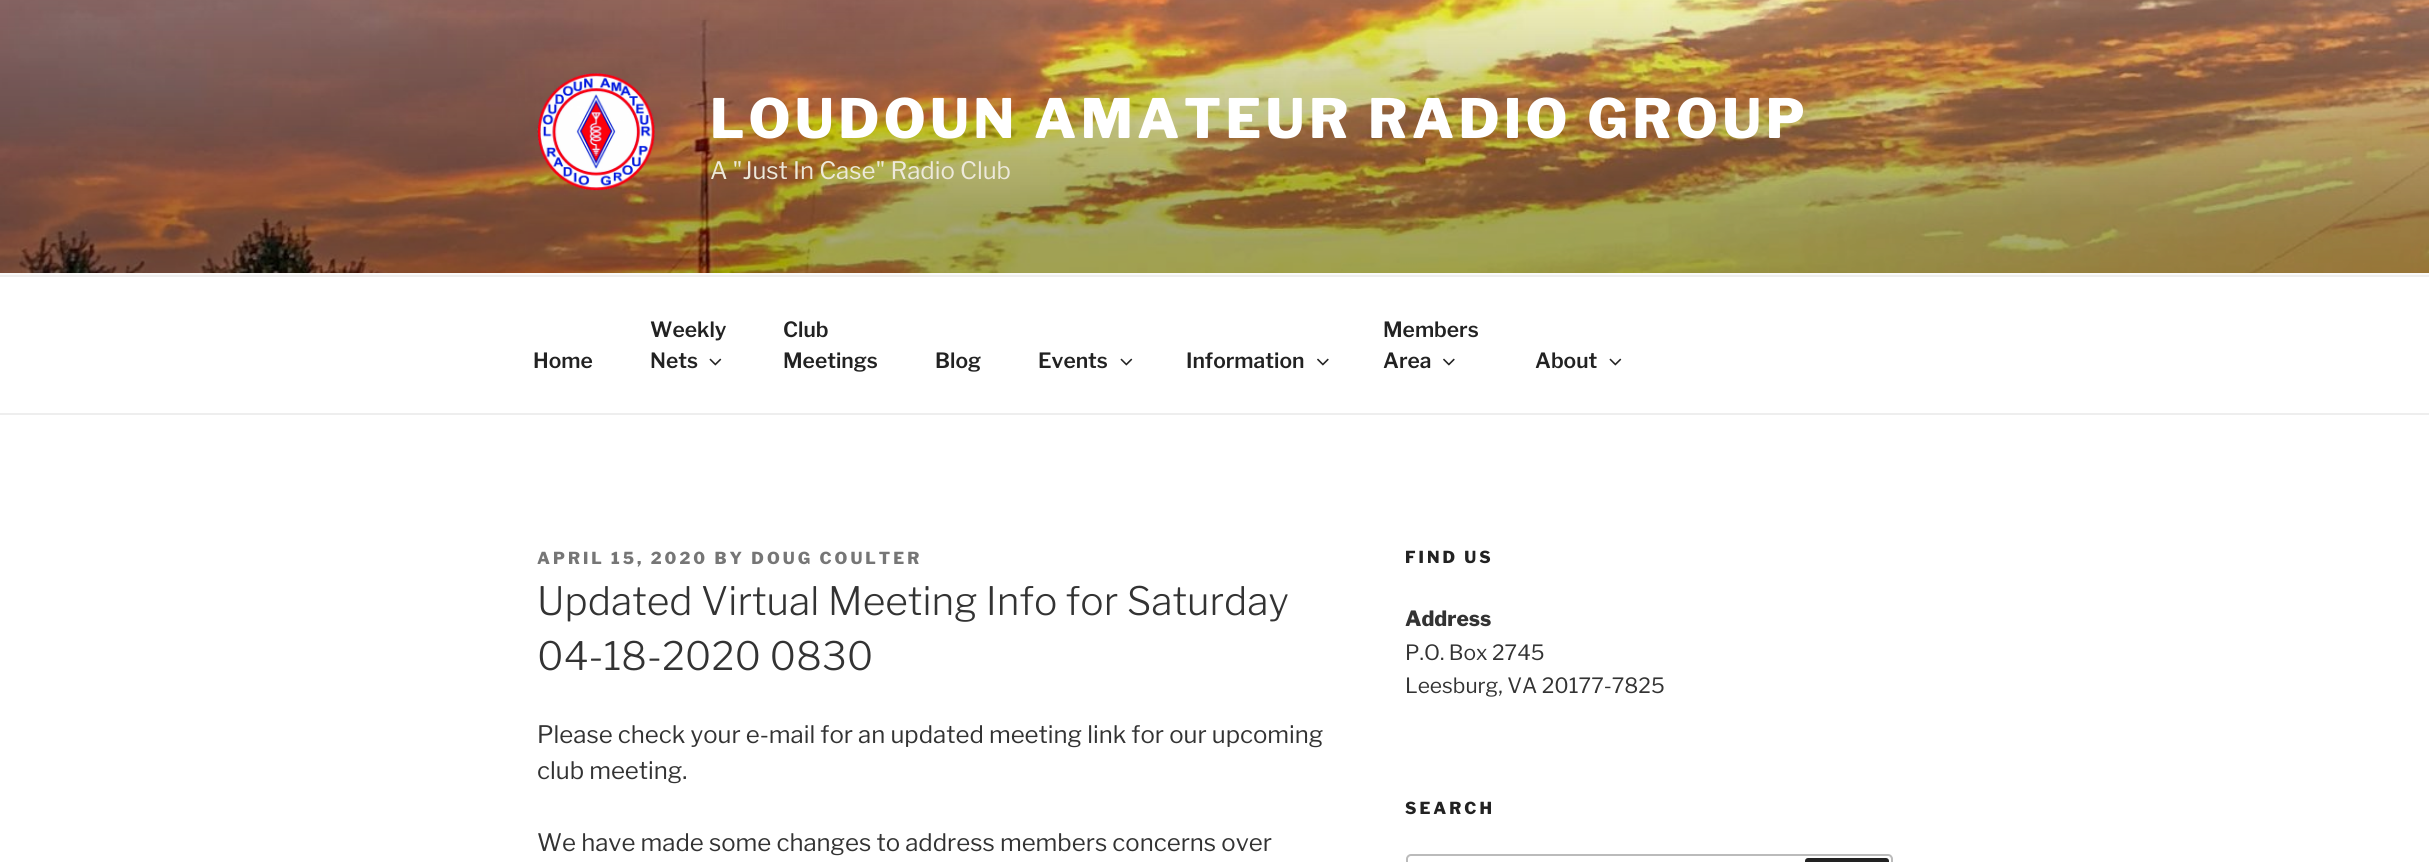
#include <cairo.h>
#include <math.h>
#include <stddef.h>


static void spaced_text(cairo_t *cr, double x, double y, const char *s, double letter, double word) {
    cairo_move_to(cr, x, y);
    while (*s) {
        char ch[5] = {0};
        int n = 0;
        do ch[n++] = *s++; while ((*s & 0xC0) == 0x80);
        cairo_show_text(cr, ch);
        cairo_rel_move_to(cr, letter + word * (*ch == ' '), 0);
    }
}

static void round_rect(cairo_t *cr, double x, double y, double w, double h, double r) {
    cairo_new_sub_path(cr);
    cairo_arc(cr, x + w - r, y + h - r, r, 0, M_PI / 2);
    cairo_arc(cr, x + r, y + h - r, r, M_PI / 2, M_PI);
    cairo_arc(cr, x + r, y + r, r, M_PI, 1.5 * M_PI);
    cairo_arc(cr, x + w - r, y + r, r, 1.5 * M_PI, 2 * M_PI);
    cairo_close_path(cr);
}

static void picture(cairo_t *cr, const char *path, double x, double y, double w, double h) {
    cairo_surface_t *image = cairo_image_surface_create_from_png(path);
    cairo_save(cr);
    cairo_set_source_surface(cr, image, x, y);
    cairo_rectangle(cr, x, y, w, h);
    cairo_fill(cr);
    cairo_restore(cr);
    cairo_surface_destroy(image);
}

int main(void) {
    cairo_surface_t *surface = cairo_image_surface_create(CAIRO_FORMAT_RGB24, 2429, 862);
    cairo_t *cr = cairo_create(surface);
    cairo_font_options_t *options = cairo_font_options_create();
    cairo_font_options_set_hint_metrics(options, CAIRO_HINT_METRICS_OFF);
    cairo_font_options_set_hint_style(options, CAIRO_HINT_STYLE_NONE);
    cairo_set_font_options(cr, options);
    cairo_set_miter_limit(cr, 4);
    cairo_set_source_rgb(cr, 1, 1, 1);
    cairo_paint(cr);
    cairo_set_source_rgb(cr, 0.98, 0.98, 0.98);
    cairo_rectangle(cr, 0, 273, 2429, 2);
    cairo_fill(cr);
    picture(cr, "img1.png", 0, 0, 2429, 273);
    picture(cr, "img2.png", 537, 73, 118, 118);
    cairo_select_font_face(cr, "Libre Franklin Thin", CAIRO_FONT_SLANT_NORMAL, CAIRO_FONT_WEIGHT_NORMAL);
    cairo_set_font_size(cr, 54);
    cairo_set_source_rgb(cr, 1, 1, 1);
    spaced_text(cr, 710, 138, "LOUDOUN AMATEUR RADIO GROUP", 4.3, 0);
    cairo_select_font_face(cr, "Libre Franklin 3 Thin", CAIRO_FONT_SLANT_NORMAL, CAIRO_FONT_WEIGHT_NORMAL);
    cairo_set_font_size(cr, 24);
    cairo_set_source_rgb(cr, 0.929, 0.914, 0.859);
    cairo_move_to(cr, 710, 179);
    cairo_show_text(cr, "A \"Just In Case\" Radio Club");
    cairo_set_source_rgb(cr, 0.933, 0.933, 0.933);
    cairo_rectangle(cr, 0, 275, 2429, 2);
    cairo_fill(cr);
    cairo_rectangle(cr, 0, 413, 2429, 2);
    cairo_fill(cr);
    cairo_select_font_face(cr, "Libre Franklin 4 Thin", CAIRO_FONT_SLANT_NORMAL, CAIRO_FONT_WEIGHT_NORMAL);
    cairo_set_font_size(cr, 21);
    cairo_set_source_rgb(cr, 0.133, 0.133, 0.133);
    cairo_move_to(cr, 533, 368);
    cairo_show_text(cr, "Home");
    cairo_move_to(cr, 650, 337);
    cairo_show_text(cr, "Weekly");
    cairo_move_to(cr, 650, 368);
    cairo_show_text(cr, "Nets");
    picture(cr, "img3.png", 709, 358, 13, 8);
    cairo_move_to(cr, 783, 337);
    cairo_show_text(cr, "Club");
    cairo_move_to(cr, 783, 368);
    cairo_show_text(cr, "Meetings");
    cairo_move_to(cr, 935, 368);
    cairo_show_text(cr, "Blog");
    cairo_move_to(cr, 1038, 368);
    cairo_show_text(cr, "Events");
    picture(cr, "img3.png", 1120, 358, 13, 8);
    cairo_move_to(cr, 1186, 368);
    cairo_show_text(cr, "Information");
    picture(cr, "img4.png", 1317, 358, 12, 8);
    cairo_move_to(cr, 1383, 337);
    cairo_show_text(cr, "Members");
    cairo_move_to(cr, 1383, 368);
    cairo_show_text(cr, "Area");
    picture(cr, "img4.png", 1443, 358, 12, 8);
    cairo_move_to(cr, 1535, 368);
    cairo_show_text(cr, "About");
    picture(cr, "img3.png", 1609, 358, 13, 8);
    cairo_select_font_face(cr, "Libre Franklin Thin", CAIRO_FONT_SLANT_NORMAL, CAIRO_FONT_WEIGHT_NORMAL);
    cairo_set_font_size(cr, 16.5);
    cairo_set_source_rgb(cr, 0.463, 0.463, 0.463);
    spaced_text(cr, 537, 564, "APRIL 15, 2020 BY DOUG COULTER", 3, 0);
    cairo_select_font_face(cr, "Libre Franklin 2 Thin", CAIRO_FONT_SLANT_NORMAL, CAIRO_FONT_WEIGHT_NORMAL);
    cairo_set_font_size(cr, 39);
    cairo_set_source_rgb(cr, 0.2, 0.2, 0.2);
    cairo_move_to(cr, 537, 615);
    cairo_show_text(cr, "Updated Virtual Meeting Info for Saturday");
    cairo_move_to(cr, 537, 670);
    cairo_show_text(cr, "04-18-2020 0830");
    cairo_select_font_face(cr, "Libre Franklin 3 Thin", CAIRO_FONT_SLANT_NORMAL, CAIRO_FONT_WEIGHT_NORMAL);
    cairo_set_font_size(cr, 24);
    cairo_move_to(cr, 537, 743);
    cairo_show_text(cr, "Please check your e-mail for an updated meeting link for our upcoming");
    cairo_move_to(cr, 537, 779);
    cairo_show_text(cr, "club meeting.");
    cairo_move_to(cr, 537, 851);
    cairo_show_text(cr, "We have made some changes to address members concerns over");
    cairo_select_font_face(cr, "Libre Franklin Thin", CAIRO_FONT_SLANT_NORMAL, CAIRO_FONT_WEIGHT_NORMAL);
    cairo_set_font_size(cr, 16.5);
    cairo_set_source_rgb(cr, 0.133, 0.133, 0.133);
    spaced_text(cr, 1405, 563, "FIND US", 3, 0);
    cairo_set_font_size(cr, 21);
    cairo_set_source_rgb(cr, 0.2, 0.2, 0.2);
    cairo_move_to(cr, 1405, 626);
    cairo_show_text(cr, "Address");
    cairo_select_font_face(cr, "Libre Franklin 3 Thin", CAIRO_FONT_SLANT_NORMAL, CAIRO_FONT_WEIGHT_NORMAL);
    cairo_move_to(cr, 1405, 660);
    cairo_show_text(cr, "P.O. Box 2745");
    cairo_move_to(cr, 1405, 693);
    cairo_show_text(cr, "Leesburg, VA 20177-7825");
    cairo_select_font_face(cr, "Libre Franklin Thin", CAIRO_FONT_SLANT_NORMAL, CAIRO_FONT_WEIGHT_NORMAL);
    cairo_set_font_size(cr, 16.5);
    cairo_set_source_rgb(cr, 0.133, 0.133, 0.133);
    spaced_text(cr, 1405, 814, "SEARCH", 3, 0);
    round_rect(cr, 1407, 855, 485, 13, 4);
    cairo_set_source_rgb(cr, 0.733, 0.733, 0.733);
    cairo_stroke(cr);
    cairo_set_source_rgb(cr, 0.133, 0.133, 0.133);
    round_rect(cr, 1805, 858, 84, 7, 3);
    cairo_fill(cr);
    cairo_surface_write_to_png(surface, "page.png");
    cairo_font_options_destroy(options);
    cairo_destroy(cr);
    cairo_surface_destroy(surface);
    return 0;
}
